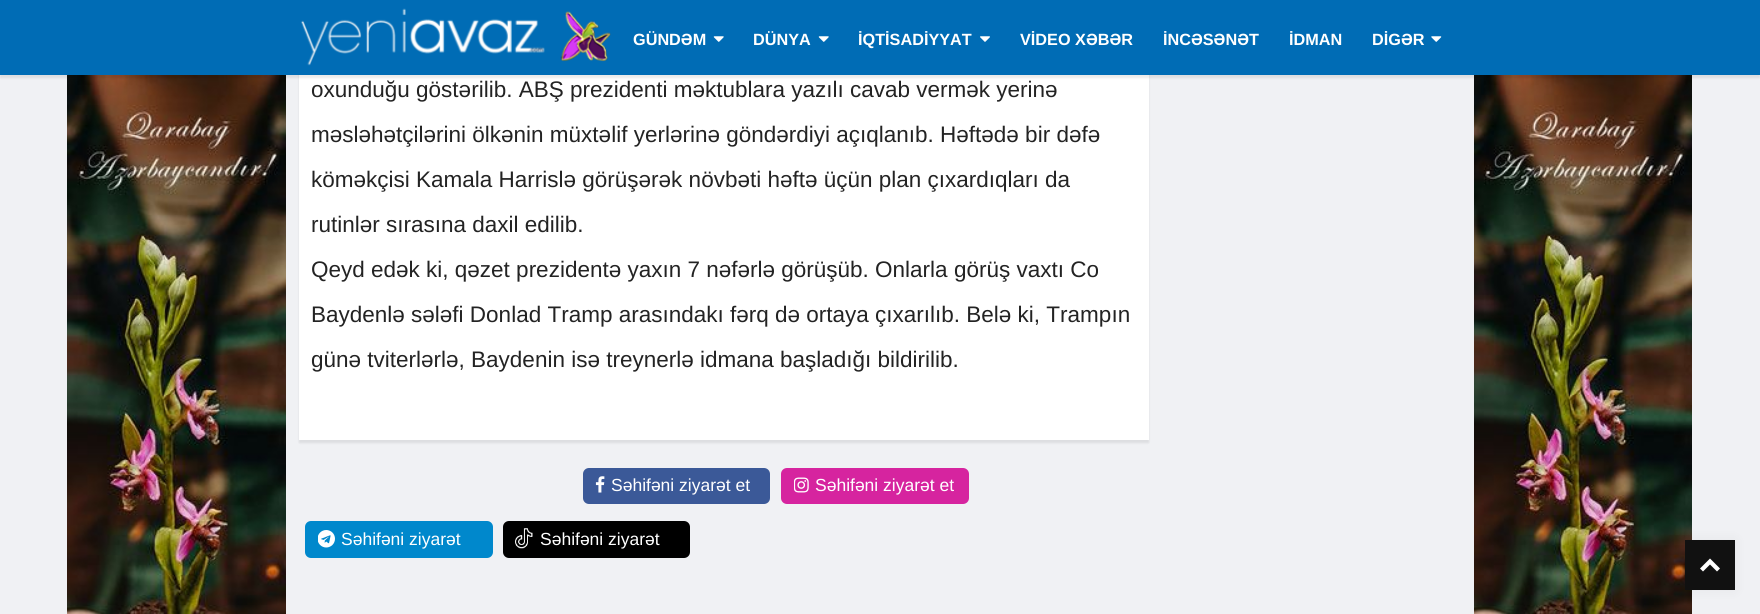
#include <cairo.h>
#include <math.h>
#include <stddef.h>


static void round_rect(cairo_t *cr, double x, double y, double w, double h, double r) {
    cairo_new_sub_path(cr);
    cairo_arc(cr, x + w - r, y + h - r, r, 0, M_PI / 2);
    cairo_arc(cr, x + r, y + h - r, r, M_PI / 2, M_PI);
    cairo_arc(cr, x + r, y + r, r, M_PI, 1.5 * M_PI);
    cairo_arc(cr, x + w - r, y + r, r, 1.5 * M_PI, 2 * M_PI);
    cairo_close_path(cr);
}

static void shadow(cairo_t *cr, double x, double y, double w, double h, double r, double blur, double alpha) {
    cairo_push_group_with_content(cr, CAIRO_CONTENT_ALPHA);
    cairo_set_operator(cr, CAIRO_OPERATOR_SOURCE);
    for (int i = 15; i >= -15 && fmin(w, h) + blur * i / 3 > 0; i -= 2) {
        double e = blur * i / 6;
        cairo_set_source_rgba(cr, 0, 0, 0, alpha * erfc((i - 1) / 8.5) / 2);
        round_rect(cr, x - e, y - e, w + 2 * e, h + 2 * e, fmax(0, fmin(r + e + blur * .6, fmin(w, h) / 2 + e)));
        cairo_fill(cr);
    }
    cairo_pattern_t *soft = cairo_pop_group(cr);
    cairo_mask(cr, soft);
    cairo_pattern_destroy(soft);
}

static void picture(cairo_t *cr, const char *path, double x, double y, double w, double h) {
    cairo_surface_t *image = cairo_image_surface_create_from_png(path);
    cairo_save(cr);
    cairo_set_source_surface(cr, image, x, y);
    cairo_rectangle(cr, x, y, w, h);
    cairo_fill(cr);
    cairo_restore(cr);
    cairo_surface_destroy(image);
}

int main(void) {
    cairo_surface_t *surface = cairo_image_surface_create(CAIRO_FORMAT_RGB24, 1760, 614);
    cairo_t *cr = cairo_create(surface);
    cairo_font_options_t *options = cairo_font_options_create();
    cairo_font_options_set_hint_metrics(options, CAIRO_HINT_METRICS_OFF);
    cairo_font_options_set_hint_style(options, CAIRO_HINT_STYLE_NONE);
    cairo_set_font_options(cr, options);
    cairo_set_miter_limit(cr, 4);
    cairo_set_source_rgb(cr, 0.941, 0.945, 0.957);
    cairo_paint(cr);
    picture(cr, "img6.png", 67, 75, 219, 539);
    picture(cr, "img7.png", 1474, 75, 218, 539);
    cairo_set_source_rgb(cr, 0, 0, 0);
    shadow(cr, 299, -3, 850, 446, 0, 1, 0.08);
    cairo_set_source_rgb(cr, 1, 1, 1);
    cairo_rectangle(cr, 299, 75, 850, 365);
    cairo_fill(cr);
    cairo_set_source_rgb(cr, 0, 0, 0);
    shadow(cr, 0, 3, 1760, 75, 0, 1, 0.08);
    cairo_set_source_rgb(cr, 0, 0.424, 0.71);
    cairo_rectangle(cr, 0, 0, 1760, 75);
    cairo_fill(cr);
    picture(cr, "img1.png", 301, 8, 244, 58);
    picture(cr, "img2.png", 560, 11, 51, 51);
    cairo_select_font_face(cr, "Liberation Sans", CAIRO_FONT_SLANT_NORMAL, CAIRO_FONT_WEIGHT_BOLD);
    cairo_set_font_size(cr, 16.25);
    cairo_set_source_rgb(cr, 1, 1, 1);
    cairo_move_to(cr, 633, 45);
    cairo_show_text(cr, "GÜNDƏM");
    picture(cr, "img3.png", 713, 36, 11, 6);
    cairo_move_to(cr, 753, 45);
    cairo_show_text(cr, "DÜNYA");
    picture(cr, "img3.png", 818, 36, 11, 6);
    cairo_move_to(cr, 858, 45);
    cairo_show_text(cr, "İQTİSADİYYAT");
    picture(cr, "img4.png", 980, 36, 10, 6);
    cairo_move_to(cr, 1020, 45);
    cairo_show_text(cr, "VİDEO XƏBƏR");
    cairo_move_to(cr, 1163, 45);
    cairo_show_text(cr, "İNCƏSƏNƏT");
    cairo_move_to(cr, 1289, 45);
    cairo_show_text(cr, "İDMAN");
    cairo_move_to(cr, 1372, 45);
    cairo_show_text(cr, "DİGƏR");
    picture(cr, "img5.png", 1431, 36, 11, 6);
    cairo_select_font_face(cr, "Liberation Sans", CAIRO_FONT_SLANT_NORMAL, CAIRO_FONT_WEIGHT_NORMAL);
    cairo_set_font_size(cr, 22.5);
    cairo_set_source_rgb(cr, 0.137, 0.137, 0.137);
    cairo_move_to(cr, 311, 97);
    cairo_show_text(cr, "oxunduğu göstərilib. ABŞ prezidenti məktublara yazılı cavab vermək yerinə");
    cairo_move_to(cr, 311, 142);
    cairo_show_text(cr, "məsləhətçilərini ölkənin müxtəlif yerlərinə göndərdiyi açıqlanıb. Həftədə bir dəfə");
    cairo_move_to(cr, 311, 187);
    cairo_show_text(cr, "köməkçisi Kamala Harrislə görüşərək növbəti həftə üçün plan çıxardıqları da");
    cairo_move_to(cr, 311, 232);
    cairo_show_text(cr, "rutinlər sırasına daxil edilib.");
    cairo_move_to(cr, 311, 277);
    cairo_show_text(cr, "Qeyd edək ki, qəzet prezidentə yaxın 7 nəfərlə görüşüb. Onlarla görüş vaxtı Co");
    cairo_move_to(cr, 311, 322);
    cairo_show_text(cr, "Baydenlə sələfi Donlad Tramp arasındakı fərq də ortaya çıxarılıb. Belə ki, Trampın");
    cairo_move_to(cr, 311, 367);
    cairo_show_text(cr, "günə tviterlərlə, Baydenin isə treynerlə idmana başladığı bildirilib.");
    cairo_set_source_rgb(cr, 0.231, 0.349, 0.596);
    round_rect(cr, 583, 468, 187, 36, 6);
    cairo_fill(cr);
    picture(cr, "img8.png", 595, 476, 10, 17);
    cairo_set_font_size(cr, 17.5);
    cairo_set_source_rgb(cr, 1, 1, 1);
    cairo_move_to(cr, 611, 491);
    cairo_show_text(cr, "Səhifəni ziyarət et");
    cairo_set_source_rgb(cr, 0.839, 0.141, 0.624);
    round_rect(cr, 781, 468, 188, 36, 6);
    cairo_fill(cr);
    picture(cr, "img9.png", 794, 477, 15, 16);
    cairo_set_source_rgb(cr, 1, 1, 1);
    cairo_move_to(cr, 815, 491);
    cairo_show_text(cr, "Səhifəni ziyarət et");
    cairo_set_source_rgb(cr, 0, 0.533, 0.8);
    round_rect(cr, 305, 521, 188, 37, 6);
    cairo_fill(cr);
    picture(cr, "img10.png", 318, 530, 17, 18);
    cairo_set_source_rgb(cr, 1, 1, 1);
    cairo_move_to(cr, 341, 545);
    cairo_show_text(cr, "Səhifəni ziyarət");
    cairo_set_source_rgb(cr, 0, 0, 0);
    round_rect(cr, 503, 521, 187, 37, 6);
    cairo_fill(cr);
    picture(cr, "img11.png", 515, 528, 18, 21);
    cairo_set_source_rgb(cr, 1, 1, 1);
    cairo_move_to(cr, 540, 545);
    cairo_show_text(cr, "Səhifəni ziyarət");
    cairo_set_source_rgb(cr, 0, 0, 0);
    shadow(cr, 1685, 540, 50, 50, 0, 6, 0.05);
    cairo_set_source_rgb(cr, 0.067, 0.067, 0.067);
    cairo_rectangle(cr, 1685, 540, 50, 50);
    cairo_fill(cr);
    cairo_set_source_rgb(cr, 1, 1, 1);
    cairo_new_path(cr);
    cairo_move_to(cr, 1710, 558.5);
    cairo_line_to(cr, 1720, 568.5);
    cairo_line_to(cr, 1717, 571.5);
    cairo_line_to(cr, 1710, 564.5);
    cairo_line_to(cr, 1703, 571.5);
    cairo_line_to(cr, 1700, 568.5);
    cairo_close_path(cr);
    cairo_fill(cr);
    cairo_surface_write_to_png(surface, "page.png");
    cairo_font_options_destroy(options);
    cairo_destroy(cr);
    cairo_surface_destroy(surface);
    return 0;
}
